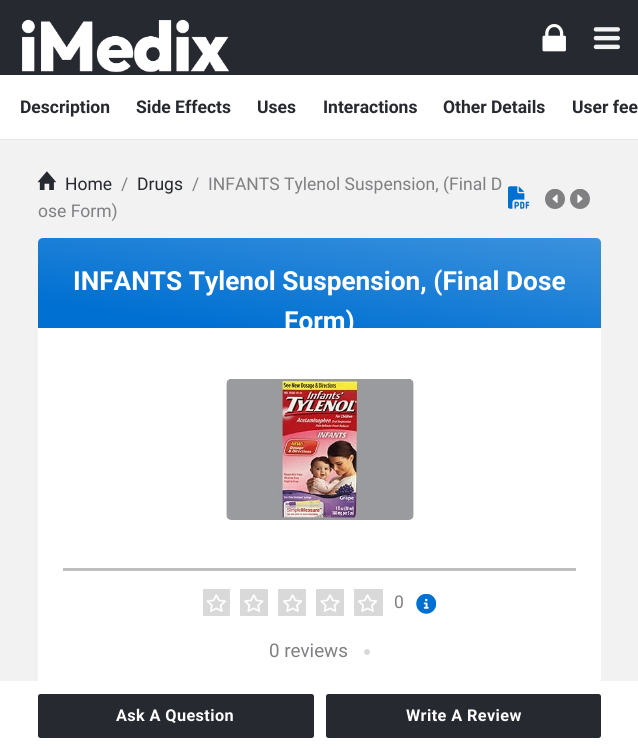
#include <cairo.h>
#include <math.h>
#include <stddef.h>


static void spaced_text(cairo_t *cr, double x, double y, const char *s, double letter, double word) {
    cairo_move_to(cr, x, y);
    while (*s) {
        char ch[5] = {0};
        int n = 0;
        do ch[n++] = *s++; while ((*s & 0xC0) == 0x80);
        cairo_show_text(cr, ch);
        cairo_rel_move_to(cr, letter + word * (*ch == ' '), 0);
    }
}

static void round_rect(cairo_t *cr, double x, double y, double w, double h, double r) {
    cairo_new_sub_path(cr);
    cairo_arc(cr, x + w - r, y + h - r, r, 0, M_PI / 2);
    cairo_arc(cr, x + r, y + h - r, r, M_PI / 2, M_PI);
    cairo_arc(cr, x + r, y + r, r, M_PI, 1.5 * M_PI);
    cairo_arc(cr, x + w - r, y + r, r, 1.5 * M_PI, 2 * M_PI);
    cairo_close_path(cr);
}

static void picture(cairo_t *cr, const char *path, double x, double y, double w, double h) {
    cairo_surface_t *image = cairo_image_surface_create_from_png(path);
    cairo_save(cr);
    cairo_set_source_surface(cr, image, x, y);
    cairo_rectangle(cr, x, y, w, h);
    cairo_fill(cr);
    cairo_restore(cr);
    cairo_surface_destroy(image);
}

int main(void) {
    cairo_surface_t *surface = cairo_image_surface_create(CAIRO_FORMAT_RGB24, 638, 750);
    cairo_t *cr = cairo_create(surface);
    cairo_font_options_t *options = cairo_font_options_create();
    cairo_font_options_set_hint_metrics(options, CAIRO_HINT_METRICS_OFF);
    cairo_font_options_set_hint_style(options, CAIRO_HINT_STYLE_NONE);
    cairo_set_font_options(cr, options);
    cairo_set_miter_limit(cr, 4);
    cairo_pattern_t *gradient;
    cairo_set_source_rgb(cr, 0.949, 0.949, 0.949);
    cairo_paint(cr);
    cairo_set_source_rgb(cr, 0.153, 0.161, 0.188);
    cairo_rectangle(cr, 0, 0, 638, 75);
    cairo_fill(cr);
    picture(cr, "img1.png", 21, 19, 208, 54);
    picture(cr, "img2.png", 542, 24, 24, 28);
    picture(cr, "img3.png", 593, 27, 27, 23);
    cairo_set_source_rgb(cr, 1, 1, 1);
    cairo_rectangle(cr, 0, 75, 638, 64);
    cairo_fill(cr);
    cairo_set_source_rgb(cr, 0.906, 0.914, 0.914);
    cairo_rectangle(cr, 0, 139, 638, 1);
    cairo_fill(cr);
    cairo_select_font_face(cr, "Roboto", CAIRO_FONT_SLANT_NORMAL, CAIRO_FONT_WEIGHT_BOLD);
    cairo_set_font_size(cr, 17.5);
    cairo_set_source_rgb(cr, 0.153, 0.161, 0.188);
    cairo_move_to(cr, 20, 113);
    cairo_show_text(cr, "Description");
    cairo_move_to(cr, 136, 113);
    cairo_show_text(cr, "Side Effects");
    cairo_move_to(cr, 257, 113);
    cairo_show_text(cr, "Uses");
    cairo_move_to(cr, 323, 113);
    cairo_show_text(cr, "Interactions");
    cairo_move_to(cr, 443, 113);
    cairo_show_text(cr, "Other Details");
    cairo_move_to(cr, 572, 113);
    cairo_show_text(cr, "User fee");
    picture(cr, "img4.png", 37, 171, 20, 19);
    cairo_select_font_face(cr, "Roboto", CAIRO_FONT_SLANT_NORMAL, CAIRO_FONT_WEIGHT_NORMAL);
    cairo_move_to(cr, 65, 190);
    cairo_show_text(cr, "Home");
    cairo_set_source_rgb(cr, 0.502, 0.502, 0.514);
    cairo_move_to(cr, 121, 190);
    cairo_show_text(cr, "/");
    cairo_set_source_rgb(cr, 0.153, 0.161, 0.188);
    cairo_move_to(cr, 137, 190);
    cairo_show_text(cr, "Drugs");
    cairo_set_source_rgb(cr, 0.502, 0.502, 0.514);
    cairo_move_to(cr, 192, 190);
    cairo_show_text(cr, "/");
    cairo_move_to(cr, 208, 190);
    cairo_show_text(cr, "INFANTS Tylenol Suspension, (Final D");
    cairo_move_to(cr, 38, 217);
    cairo_show_text(cr, "ose Form)");
    picture(cr, "img5.png", 508, 186, 22, 23);
    cairo_arc(cr, 555, 199, 10, 0, 2 * M_PI);
    cairo_fill(cr);
    picture(cr, "img6.png", 546, 189, 17, 14);
    cairo_arc(cr, 580, 199, 10, 0, 2 * M_PI);
    cairo_fill(cr);
    picture(cr, "img7.png", 571, 189, 17, 14);
    cairo_set_source_rgb(cr, 1, 1, 1);
    round_rect(cr, 38, 238, 563, 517, 5);
    cairo_fill(cr);
    gradient = cairo_pattern_create_linear(395, -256, 308, 365);
    cairo_pattern_add_color_stop_rgba(gradient, 0, 1, 1, 1, 1);
    cairo_pattern_add_color_stop_rgba(gradient, 0.96, 0, 0.439, 0.824, 1);
    cairo_set_source(cr, gradient);
    cairo_pattern_destroy(gradient);
    cairo_new_path(cr);
    cairo_move_to(cr, 43, 238);
    cairo_line_to(cr, 596, 238);
    cairo_curve_to(cr, 599, 238, 601, 240, 601, 243);
    cairo_line_to(cr, 601, 328);
    cairo_line_to(cr, 38, 328);
    cairo_line_to(cr, 38, 243);
    cairo_curve_to(cr, 38, 240, 40, 238, 43, 238);
    cairo_close_path(cr);
    cairo_fill(cr);
    cairo_select_font_face(cr, "Roboto", CAIRO_FONT_SLANT_NORMAL, CAIRO_FONT_WEIGHT_BOLD);
    cairo_set_font_size(cr, 26.25);
    cairo_set_source_rgb(cr, 1, 1, 1);
    cairo_move_to(cr, 73, 290);
    cairo_show_text(cr, "INFANTS Tylenol Suspension, (Final Dose");
    cairo_move_to(cr, 284, 330);
    cairo_show_text(cr, "Form)");
    picture(cr, "img8.png", 226, 379, 188, 141);
    cairo_set_source_rgb(cr, 0.749, 0.749, 0.757);
    cairo_rectangle(cr, 63, 568, 513, 3);
    cairo_fill(cr);
    cairo_set_source_rgb(cr, 0.851, 0.851, 0.851);
    cairo_rectangle(cr, 203, 589, 27, 27);
    cairo_fill(cr);
    picture(cr, "img9.png", 206, 594, 20, 18);
    cairo_rectangle(cr, 240, 589, 28, 27);
    cairo_fill(cr);
    picture(cr, "img10.png", 244, 594, 20, 18);
    cairo_rectangle(cr, 278, 589, 28, 27);
    cairo_fill(cr);
    picture(cr, "img11.png", 283, 594, 20, 18);
    cairo_rectangle(cr, 316, 589, 28, 27);
    cairo_fill(cr);
    picture(cr, "img12.png", 320, 594, 20, 18);
    cairo_rectangle(cr, 354, 589, 29, 27);
    cairo_fill(cr);
    picture(cr, "img11.png", 358, 594, 20, 18);
    cairo_select_font_face(cr, "Roboto", CAIRO_FONT_SLANT_NORMAL, CAIRO_FONT_WEIGHT_NORMAL);
    cairo_set_font_size(cr, 17.5);
    cairo_set_source_rgb(cr, 0.502, 0.502, 0.514);
    cairo_move_to(cr, 394, 608);
    cairo_show_text(cr, "0");
    picture(cr, "img13.png", 416, 594, 20, 20);
    cairo_set_font_size(cr, 18.75);
    cairo_move_to(cr, 269, 657);
    cairo_show_text(cr, "0 reviews");
    cairo_set_source_rgb(cr, 0.851, 0.851, 0.851);
    cairo_new_path(cr);
    cairo_arc(cr, 367, 652, 3, 0, 2 * M_PI);
    cairo_fill(cr);
    cairo_set_source_rgb(cr, 1, 1, 1);
    cairo_rectangle(cr, 0, 681, 638, 69);
    cairo_fill(cr);
    cairo_set_source_rgb(cr, 0.153, 0.161, 0.188);
    round_rect(cr, 38, 694, 276, 44, 2.5);
    cairo_fill(cr);
    cairo_select_font_face(cr, "Roboto", CAIRO_FONT_SLANT_NORMAL, CAIRO_FONT_WEIGHT_BOLD);
    cairo_set_font_size(cr, 16.25);
    cairo_set_source_rgb(cr, 1, 1, 1);
    spaced_text(cr, 116, 721, "Ask A Question", 0.4, 0);
    cairo_set_source_rgb(cr, 0.153, 0.161, 0.188);
    round_rect(cr, 326, 694, 275, 44, 2.5);
    cairo_fill(cr);
    cairo_set_source_rgb(cr, 1, 1, 1);
    spaced_text(cr, 406, 721, "Write A Review", 0.4, 0);
    cairo_surface_write_to_png(surface, "page.png");
    cairo_font_options_destroy(options);
    cairo_destroy(cr);
    cairo_surface_destroy(surface);
    return 0;
}
